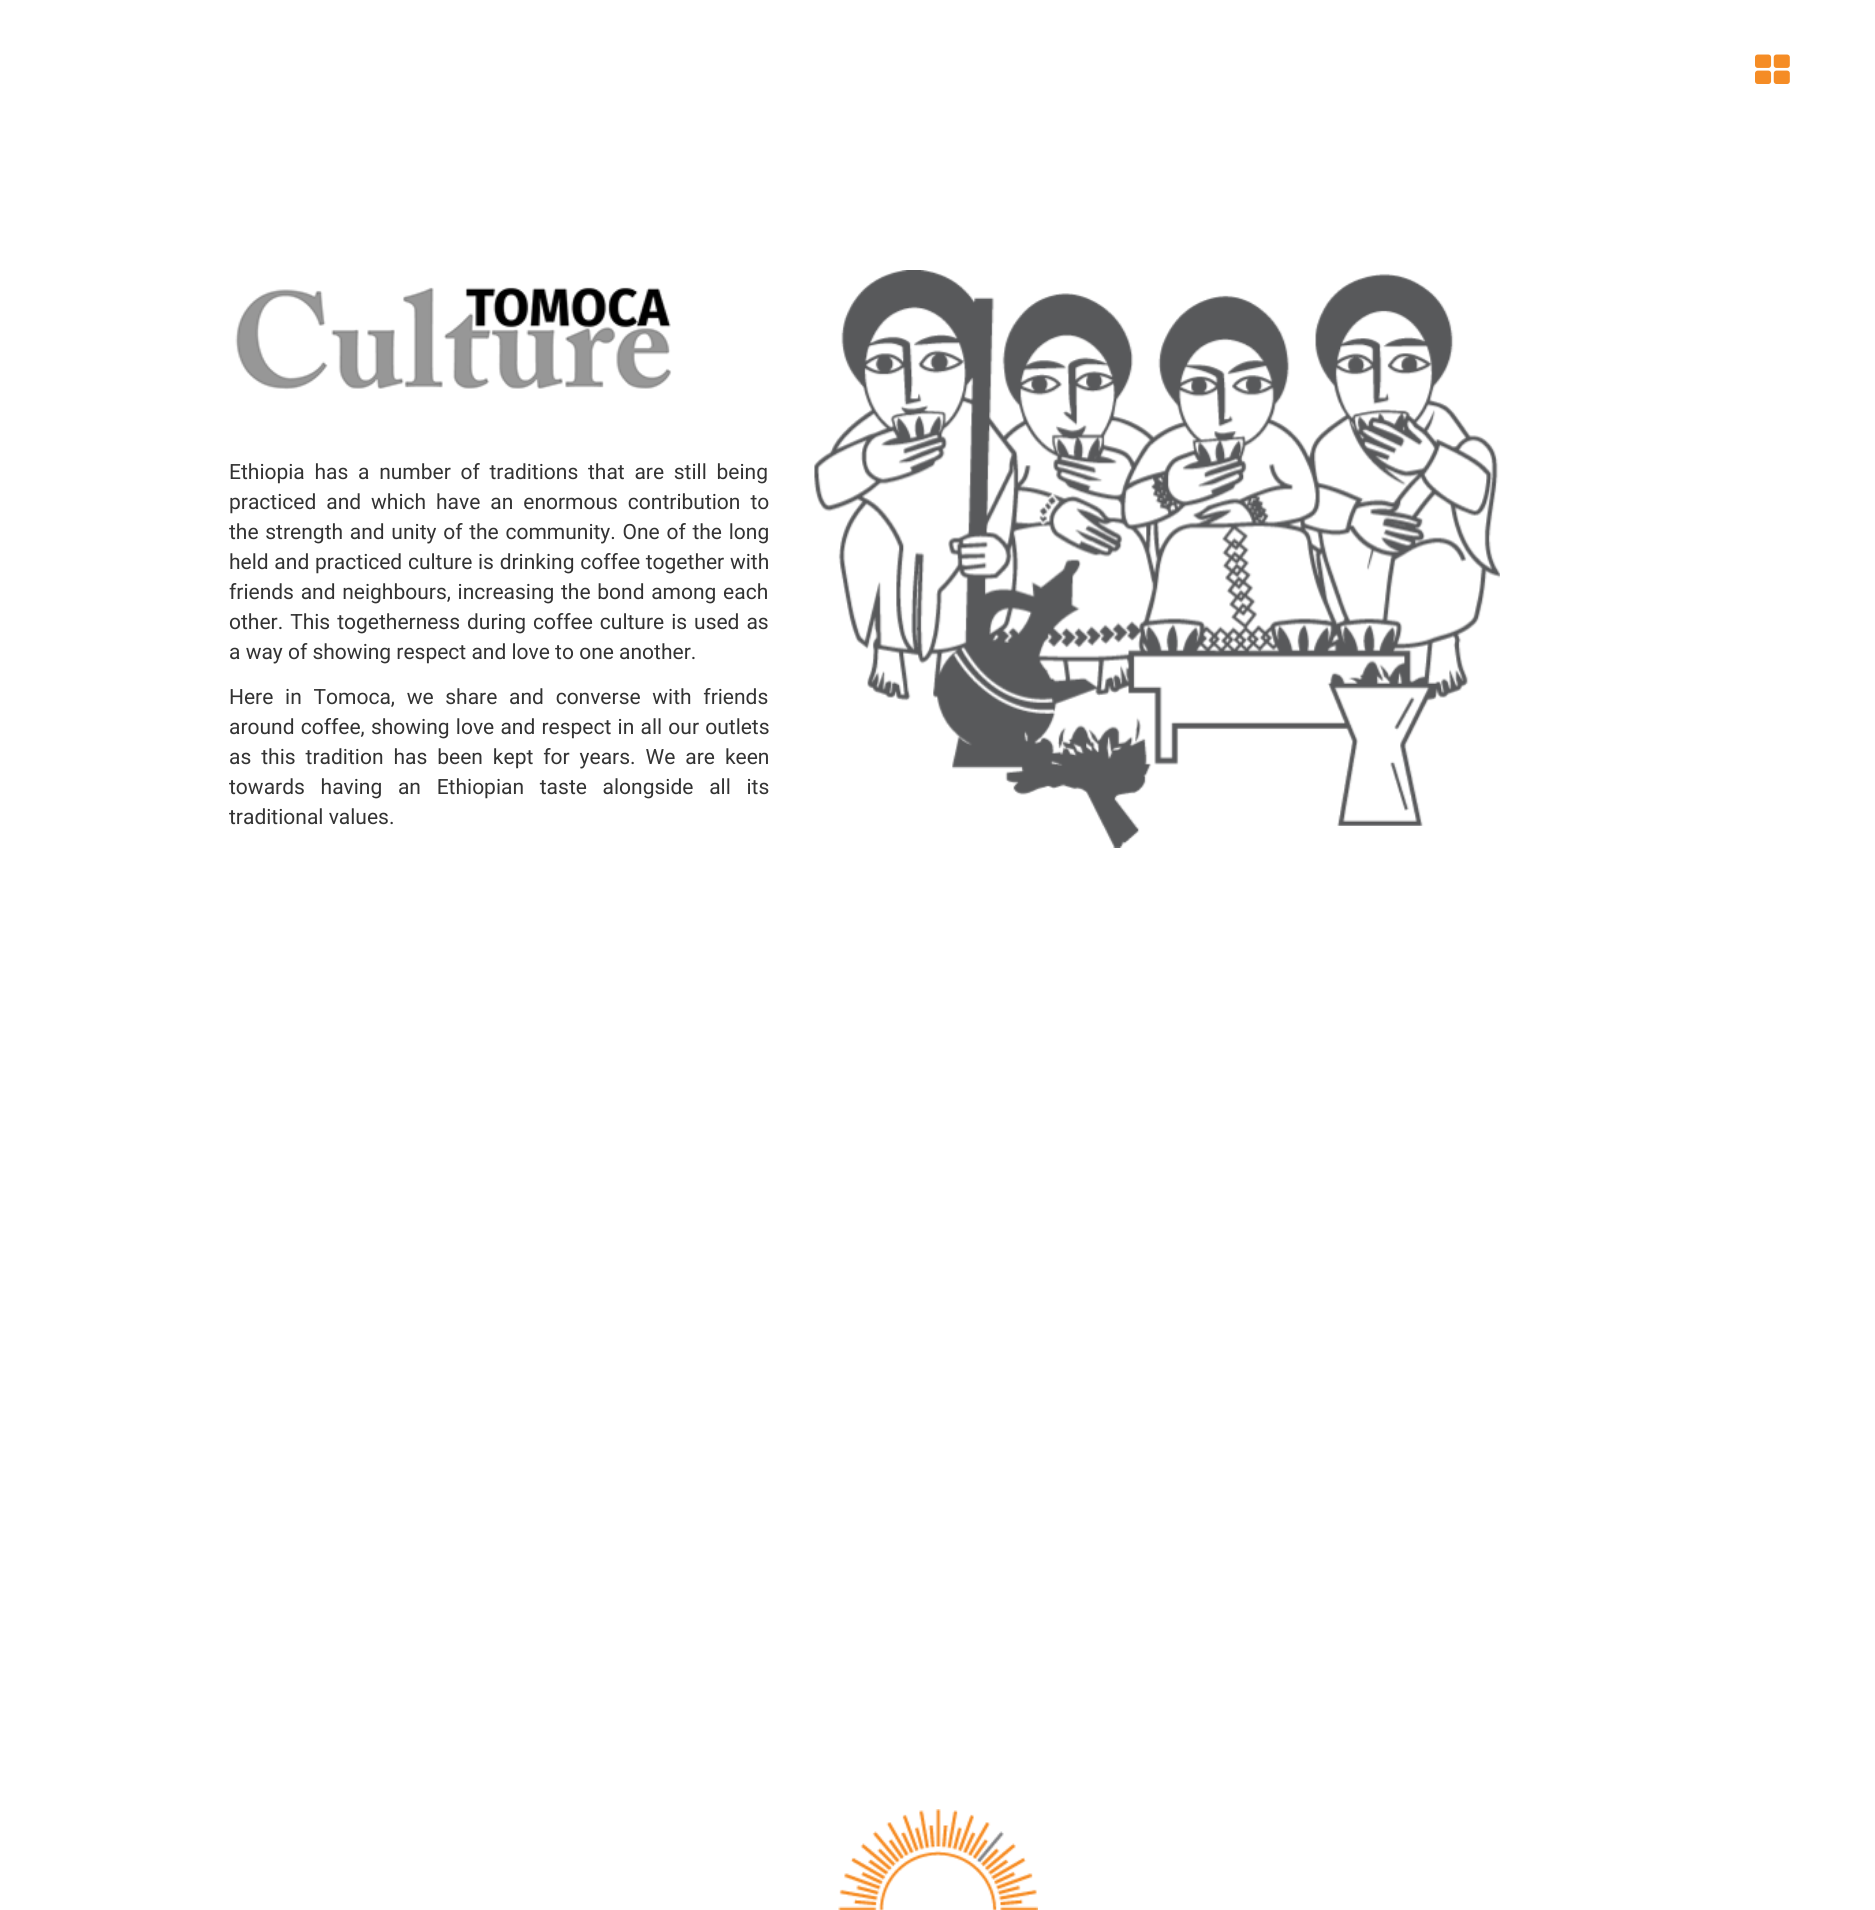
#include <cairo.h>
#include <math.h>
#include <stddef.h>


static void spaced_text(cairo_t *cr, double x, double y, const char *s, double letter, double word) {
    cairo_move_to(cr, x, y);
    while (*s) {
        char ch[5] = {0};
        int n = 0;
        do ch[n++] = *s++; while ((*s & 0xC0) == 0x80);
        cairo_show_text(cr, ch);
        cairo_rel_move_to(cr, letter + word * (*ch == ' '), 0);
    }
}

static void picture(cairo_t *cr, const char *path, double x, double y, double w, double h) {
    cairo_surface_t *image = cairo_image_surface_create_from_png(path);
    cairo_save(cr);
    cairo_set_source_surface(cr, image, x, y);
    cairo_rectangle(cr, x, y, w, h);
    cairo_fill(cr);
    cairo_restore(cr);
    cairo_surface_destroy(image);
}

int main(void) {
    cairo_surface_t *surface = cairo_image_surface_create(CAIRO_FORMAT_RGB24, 1875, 1910);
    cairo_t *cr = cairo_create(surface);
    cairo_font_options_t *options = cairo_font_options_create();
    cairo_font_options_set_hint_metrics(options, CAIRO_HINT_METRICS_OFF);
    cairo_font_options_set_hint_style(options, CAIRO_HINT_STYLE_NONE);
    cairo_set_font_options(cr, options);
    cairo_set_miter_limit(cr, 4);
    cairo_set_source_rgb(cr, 1, 1, 1);
    cairo_paint(cr);
    picture(cr, "img1.png", 1755, 54, 35, 30);
    picture(cr, "img2.png", 235, 287, 437, 103);
    cairo_select_font_face(cr, "Roboto", CAIRO_FONT_SLANT_NORMAL, CAIRO_FONT_WEIGHT_NORMAL);
    cairo_set_font_size(cr, 21);
    cairo_set_source_rgb(cr, 0.2, 0.2, 0.2);
    spaced_text(cr, 229, 479, "Ethiopia has a number of traditions that are still being", 0, 4.5);
    spaced_text(cr, 229, 509, "practiced and which have an enormous contribution to", 0, 4.75);
    spaced_text(cr, 229, 539, "the strength and unity of the community. One of the long", 0, 1.5);
    spaced_text(cr, 229, 569, "held and practiced culture is drinking coffee together with", 0, 0.5);
    spaced_text(cr, 229, 599, "friends and neighbours, increasing the bond among each", 0, 1.5);
    spaced_text(cr, 229, 629, "other. This togetherness during coffee culture is used as", 0, 1.75);
    cairo_move_to(cr, 229, 659);
    cairo_show_text(cr, "a way of showing respect and love to one another.");
    spaced_text(cr, 229, 704, "Here in Tomoca, we share and converse with friends", 0, 6.5);
    spaced_text(cr, 229, 734, "around coffee, showing love and respect in all our outlets", 0, 1);
    spaced_text(cr, 229, 764, "as this tradition has been kept for years. We are keen", 0, 4.75);
    spaced_text(cr, 229, 794, "towards having an Ethiopian taste alongside all its", 0, 10.5);
    cairo_move_to(cr, 229, 824);
    cairo_show_text(cr, "traditional values.");
    picture(cr, "img3.png", 814, 270, 686, 578);
    picture(cr, "img4.png", 838, 1809, 200, 101);
    cairo_surface_write_to_png(surface, "page.png");
    cairo_font_options_destroy(options);
    cairo_destroy(cr);
    cairo_surface_destroy(surface);
    return 0;
}
